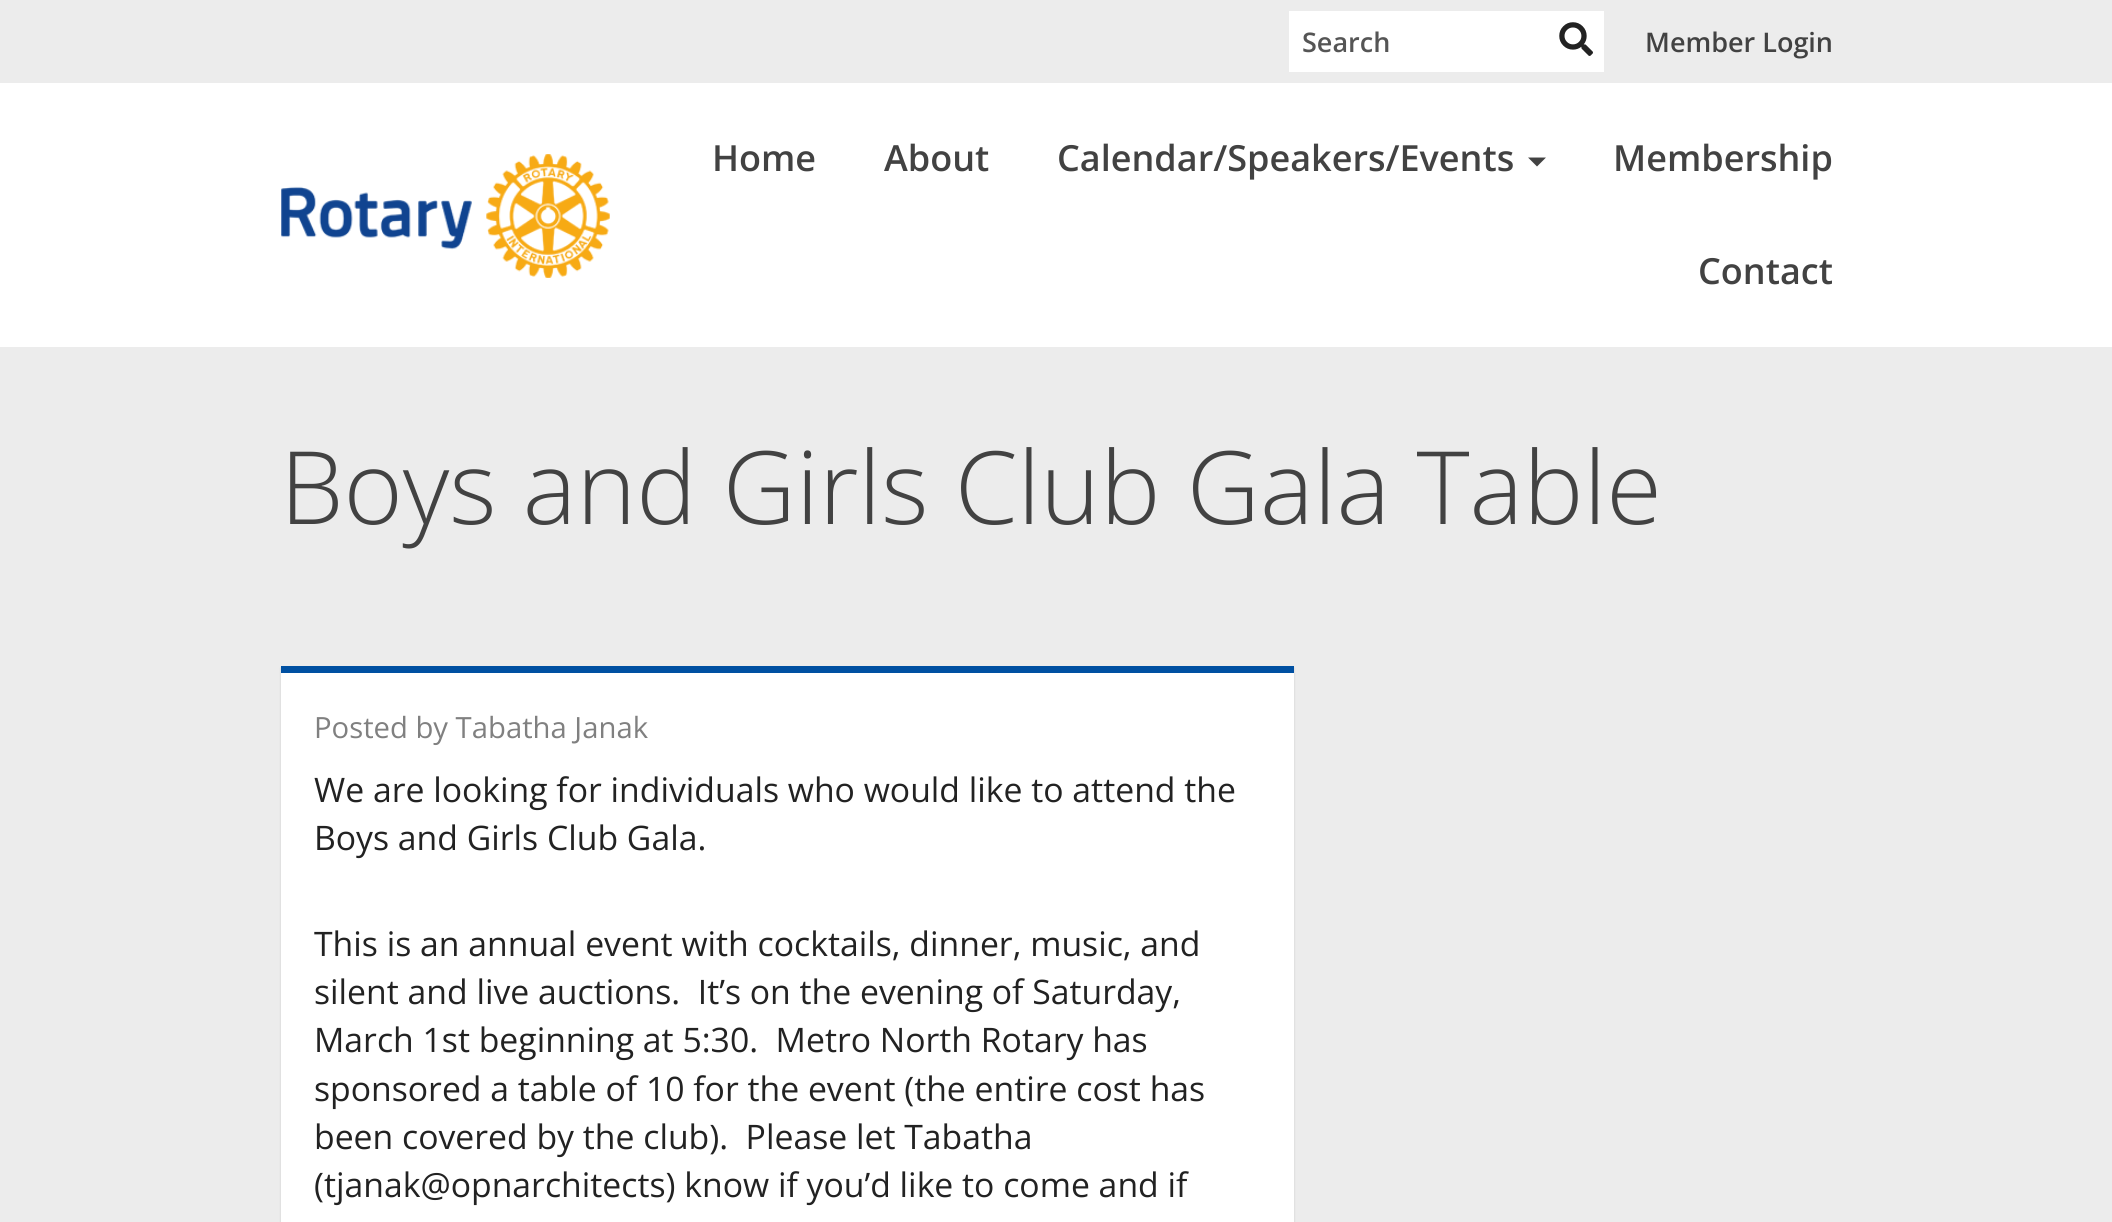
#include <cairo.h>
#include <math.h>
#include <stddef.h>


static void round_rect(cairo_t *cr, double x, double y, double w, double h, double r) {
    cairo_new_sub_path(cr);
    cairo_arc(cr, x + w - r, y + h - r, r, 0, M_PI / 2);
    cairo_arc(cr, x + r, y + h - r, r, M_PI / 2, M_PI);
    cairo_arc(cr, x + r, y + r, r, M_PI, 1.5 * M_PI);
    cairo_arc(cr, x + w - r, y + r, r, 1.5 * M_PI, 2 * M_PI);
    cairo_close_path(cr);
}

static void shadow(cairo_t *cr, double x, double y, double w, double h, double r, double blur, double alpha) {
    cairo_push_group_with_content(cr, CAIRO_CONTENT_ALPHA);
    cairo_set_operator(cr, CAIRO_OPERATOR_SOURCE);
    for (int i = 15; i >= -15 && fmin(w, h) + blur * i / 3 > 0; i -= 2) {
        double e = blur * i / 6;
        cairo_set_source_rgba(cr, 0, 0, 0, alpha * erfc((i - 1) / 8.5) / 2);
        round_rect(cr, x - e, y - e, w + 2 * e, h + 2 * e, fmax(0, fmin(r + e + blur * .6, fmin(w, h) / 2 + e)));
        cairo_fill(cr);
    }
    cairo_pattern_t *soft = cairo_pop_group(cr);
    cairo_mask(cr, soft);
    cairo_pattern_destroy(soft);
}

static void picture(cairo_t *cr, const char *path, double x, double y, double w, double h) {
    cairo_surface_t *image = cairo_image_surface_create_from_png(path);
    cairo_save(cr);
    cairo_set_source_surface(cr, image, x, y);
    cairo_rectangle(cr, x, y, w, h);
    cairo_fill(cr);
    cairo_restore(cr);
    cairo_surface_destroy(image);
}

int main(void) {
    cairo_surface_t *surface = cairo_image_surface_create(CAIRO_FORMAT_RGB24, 2112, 1222);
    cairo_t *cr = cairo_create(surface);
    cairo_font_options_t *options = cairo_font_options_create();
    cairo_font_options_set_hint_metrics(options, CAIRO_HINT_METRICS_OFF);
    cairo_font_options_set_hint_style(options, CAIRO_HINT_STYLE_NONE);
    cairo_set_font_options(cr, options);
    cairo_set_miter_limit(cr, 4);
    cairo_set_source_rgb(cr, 0.925, 0.925, 0.925);
    cairo_paint(cr);
    cairo_set_source_rgb(cr, 1, 1, 1);
    cairo_rectangle(cr, 1289, 11, 315, 61);
    cairo_fill(cr);
    cairo_select_font_face(cr, "Open Sans SemiBold", CAIRO_FONT_SLANT_NORMAL, CAIRO_FONT_WEIGHT_NORMAL);
    cairo_set_font_size(cr, 27);
    cairo_set_source_rgb(cr, 0.333, 0.333, 0.333);
    cairo_move_to(cr, 1302, 52);
    cairo_show_text(cr, "Search");
    picture(cr, "img1.png", 1559, 22, 34, 34);
    cairo_set_source_rgb(cr, 0.259, 0.259, 0.259);
    cairo_move_to(cr, 1645, 52);
    cairo_show_text(cr, "Member Login");
    cairo_set_source_rgb(cr, 1, 1, 1);
    cairo_rectangle(cr, 0, 83, 2112, 264);
    cairo_fill(cr);
    picture(cr, "img2.png", 281, 154, 329, 124);
    cairo_set_font_size(cr, 36);
    cairo_set_source_rgb(cr, 0.259, 0.259, 0.259);
    cairo_move_to(cr, 712, 171);
    cairo_show_text(cr, "Home");
    cairo_move_to(cr, 884, 171);
    cairo_show_text(cr, "About");
    cairo_move_to(cr, 1057, 171);
    cairo_show_text(cr, "Calendar/Speakers/Events");
    cairo_new_path(cr);
    cairo_move_to(cr, 1528, 157.5);
    cairo_line_to(cr, 1546, 157.5);
    cairo_line_to(cr, 1537, 166.5);
    cairo_close_path(cr);
    cairo_fill(cr);
    cairo_move_to(cr, 1613, 171);
    cairo_show_text(cr, "Membership");
    cairo_move_to(cr, 1698, 284);
    cairo_show_text(cr, "Contact");
    cairo_select_font_face(cr, "Open Sans Light", CAIRO_FONT_SLANT_NORMAL, CAIRO_FONT_WEIGHT_NORMAL);
    cairo_set_font_size(cr, 101.25);
    cairo_move_to(cr, 280, 524);
    cairo_show_text(cr, "Boys and Girls Club Gala Table");
    cairo_set_source_rgb(cr, 0, 0, 0);
    shadow(cr, 281, 668, 1013, 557, 0, 1, 0.15);
    cairo_set_source_rgb(cr, 1, 1, 1);
    cairo_rectangle(cr, 281, 673, 1013, 549);
    cairo_fill(cr);
    cairo_set_source_rgb(cr, 0, 0.314, 0.635);
    cairo_rectangle(cr, 281, 666, 1013, 7);
    cairo_fill(cr);
    cairo_select_font_face(cr, "Open Sans", CAIRO_FONT_SLANT_NORMAL, CAIRO_FONT_WEIGHT_NORMAL);
    cairo_set_font_size(cr, 29.25);
    cairo_set_source_rgb(cr, 0.502, 0.502, 0.502);
    cairo_move_to(cr, 314, 738);
    cairo_show_text(cr, "Posted by Tabatha Janak");
    cairo_set_font_size(cr, 33.75);
    cairo_set_source_rgb(cr, 0.133, 0.133, 0.133);
    cairo_move_to(cr, 314, 802);
    cairo_show_text(cr, "We are looking for individuals who would like to attend the");
    cairo_move_to(cr, 314, 850);
    cairo_show_text(cr, "Boys and Girls Club Gala.");
    cairo_move_to(cr, 314, 956);
    cairo_show_text(cr, "This is an annual event with cocktails, dinner, music, and");
    cairo_move_to(cr, 314, 1004);
    cairo_show_text(cr, "silent and live auctions.  It’s on the evening of Saturday,");
    cairo_move_to(cr, 314, 1052);
    cairo_show_text(cr, "March 1st beginning at 5:30.  Metro North Rotary has");
    cairo_move_to(cr, 314, 1101);
    cairo_show_text(cr, "sponsored a table of 10 for the event (the entire cost has");
    cairo_move_to(cr, 314, 1149);
    cairo_show_text(cr, "been covered by the club).  Please let Tabatha");
    cairo_move_to(cr, 314, 1197);
    cairo_show_text(cr, "(tjanak@opnarchitects) know if you’d like to come and if");
    cairo_surface_write_to_png(surface, "page.png");
    cairo_font_options_destroy(options);
    cairo_destroy(cr);
    cairo_surface_destroy(surface);
    return 0;
}
